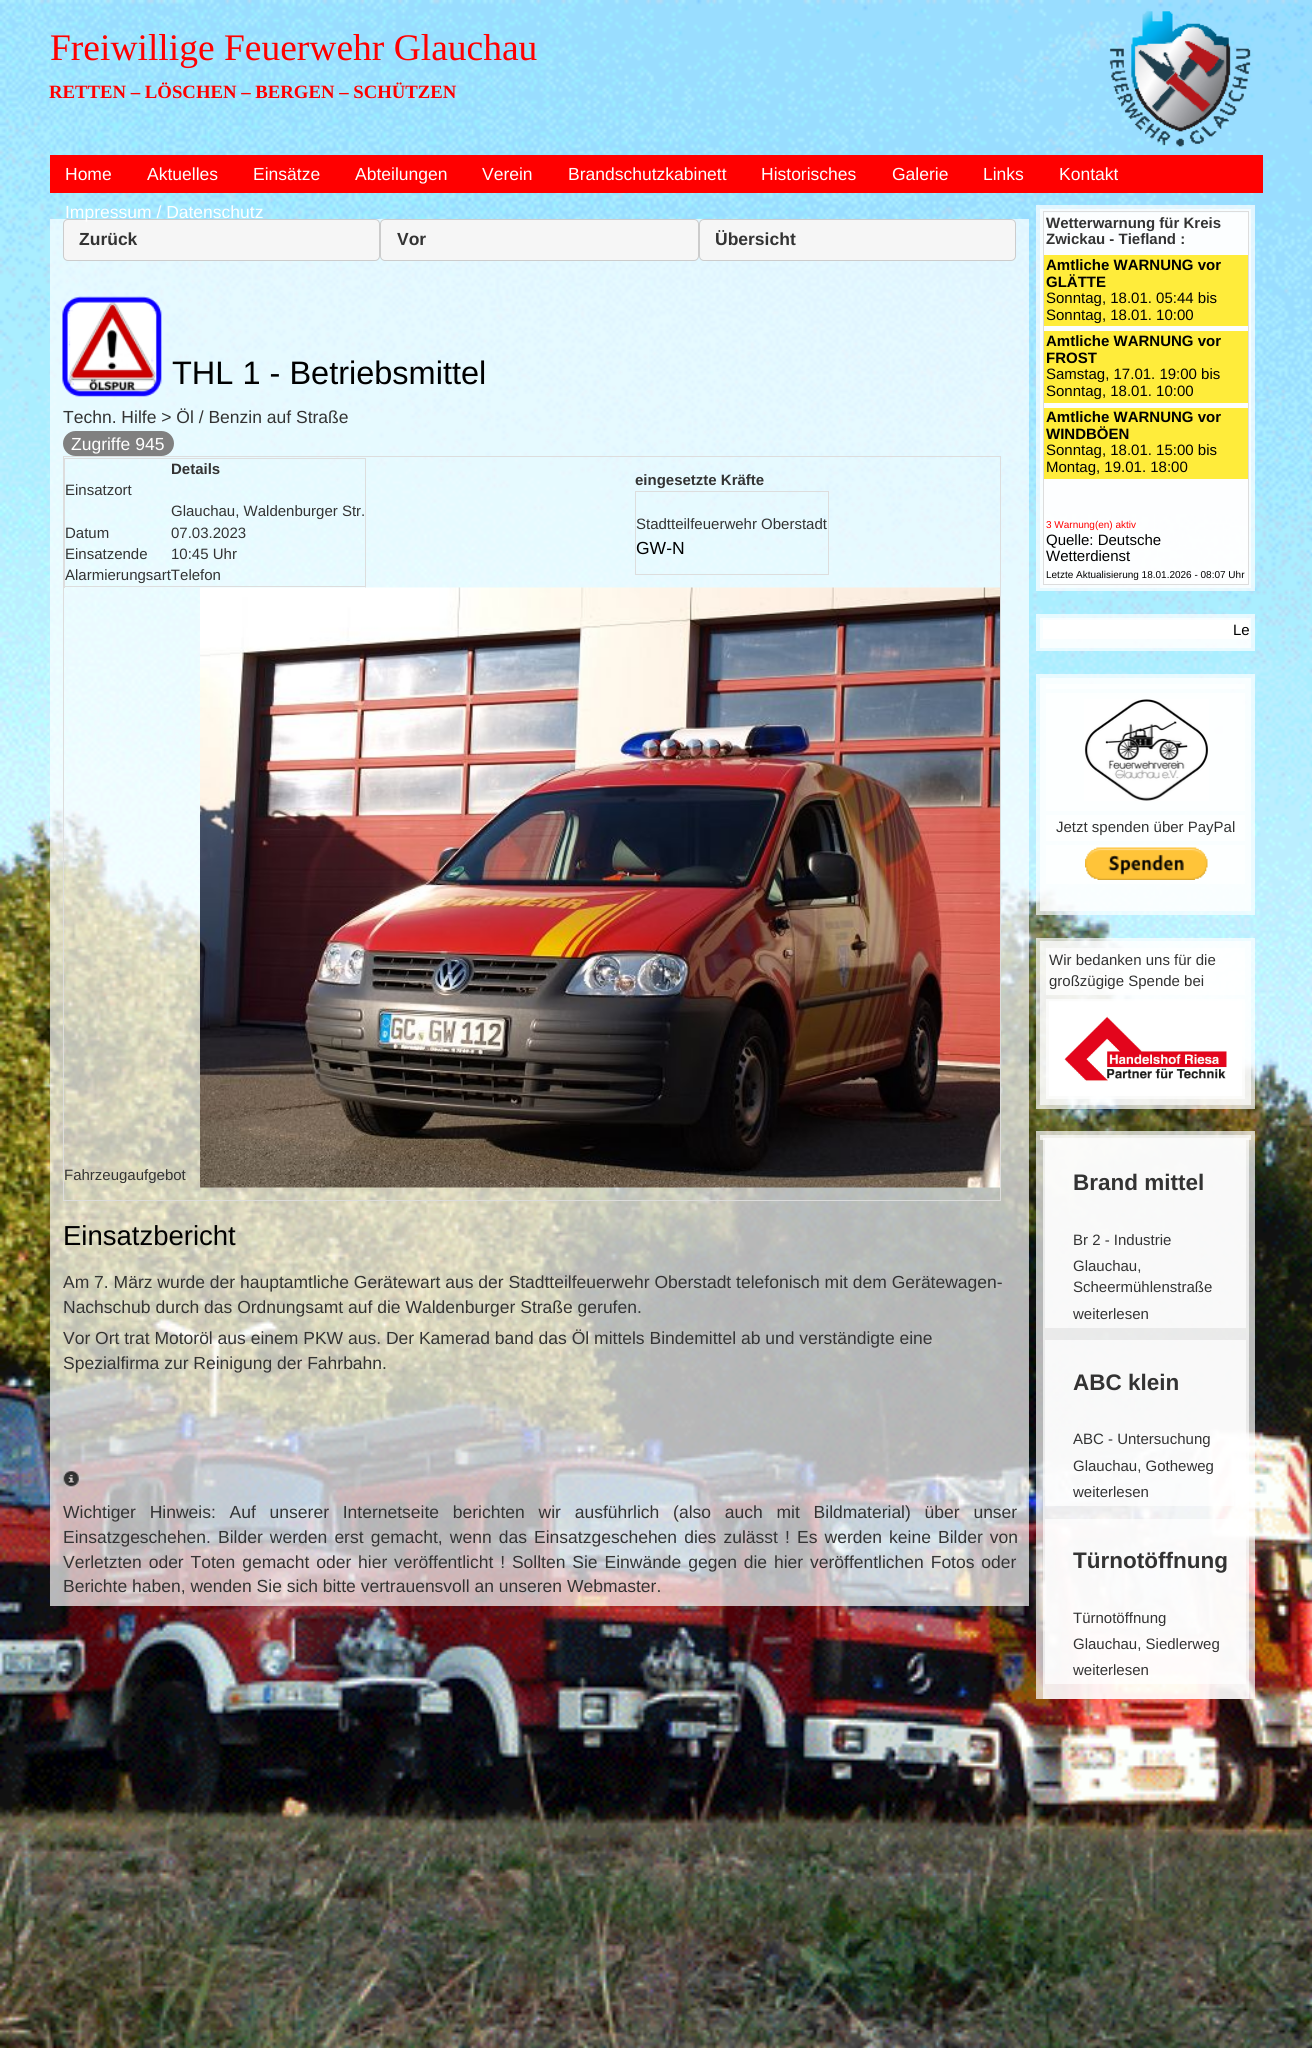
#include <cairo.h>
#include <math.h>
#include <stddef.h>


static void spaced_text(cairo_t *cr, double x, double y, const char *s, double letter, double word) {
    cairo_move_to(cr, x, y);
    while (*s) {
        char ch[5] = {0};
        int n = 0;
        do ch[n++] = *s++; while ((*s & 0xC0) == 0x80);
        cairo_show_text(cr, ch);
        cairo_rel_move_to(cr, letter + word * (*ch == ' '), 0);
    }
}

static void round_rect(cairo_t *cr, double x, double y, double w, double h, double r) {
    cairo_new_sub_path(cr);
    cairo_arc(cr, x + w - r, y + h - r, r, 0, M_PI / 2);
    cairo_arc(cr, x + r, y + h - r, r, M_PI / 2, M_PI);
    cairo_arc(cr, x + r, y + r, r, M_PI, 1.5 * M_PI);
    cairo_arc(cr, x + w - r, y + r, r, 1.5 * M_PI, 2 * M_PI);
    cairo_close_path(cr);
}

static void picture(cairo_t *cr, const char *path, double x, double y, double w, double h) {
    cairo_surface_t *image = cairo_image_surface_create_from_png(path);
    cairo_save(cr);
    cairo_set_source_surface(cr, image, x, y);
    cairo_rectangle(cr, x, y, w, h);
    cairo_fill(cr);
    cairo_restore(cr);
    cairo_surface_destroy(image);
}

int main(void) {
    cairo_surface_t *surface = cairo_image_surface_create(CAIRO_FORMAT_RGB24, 1312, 2048);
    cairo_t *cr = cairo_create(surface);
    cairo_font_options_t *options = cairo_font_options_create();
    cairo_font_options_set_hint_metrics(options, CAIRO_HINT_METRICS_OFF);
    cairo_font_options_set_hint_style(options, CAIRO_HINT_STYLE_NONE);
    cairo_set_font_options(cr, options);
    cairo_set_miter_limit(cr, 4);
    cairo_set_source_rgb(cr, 1, 1, 1);
    cairo_paint(cr);
    picture(cr, "img1.png", 0, 0, 1312, 2048);
    cairo_select_font_face(cr, "Liberation Serif", CAIRO_FONT_SLANT_NORMAL, CAIRO_FONT_WEIGHT_NORMAL);
    cairo_set_font_size(cr, 37.5);
    cairo_set_source_rgb(cr, 1, 0, 0);
    cairo_move_to(cr, 50, 60);
    cairo_show_text(cr, "Freiwillige Feuerwehr Glauchau");
    picture(cr, "img2.png", 1109, 11, 142, 136);
    cairo_select_font_face(cr, "Liberation Serif", CAIRO_FONT_SLANT_NORMAL, CAIRO_FONT_WEIGHT_BOLD);
    cairo_set_font_size(cr, 18.75);
    cairo_move_to(cr, 49, 98);
    cairo_show_text(cr, "RETTEN – LÖSCHEN – BERGEN – SCHÜTZEN");
    cairo_rectangle(cr, 50, 155, 1213, 38);
    cairo_fill(cr);
    cairo_select_font_face(cr, "Liberation Sans", CAIRO_FONT_SLANT_NORMAL, CAIRO_FONT_WEIGHT_NORMAL);
    cairo_set_font_size(cr, 17.5);
    cairo_set_source_rgb(cr, 1, 1, 1);
    cairo_move_to(cr, 65, 180);
    cairo_show_text(cr, "Home");
    cairo_move_to(cr, 147, 180);
    cairo_show_text(cr, "Aktuelles");
    cairo_move_to(cr, 253, 180);
    cairo_show_text(cr, "Einsätze");
    cairo_move_to(cr, 355, 180);
    cairo_show_text(cr, "Abteilungen");
    cairo_move_to(cr, 482, 180);
    cairo_show_text(cr, "Verein");
    cairo_move_to(cr, 568, 180);
    cairo_show_text(cr, "Brandschutzkabinett");
    cairo_move_to(cr, 761, 180);
    cairo_show_text(cr, "Historisches");
    cairo_move_to(cr, 892, 180);
    cairo_show_text(cr, "Galerie");
    cairo_move_to(cr, 983, 180);
    cairo_show_text(cr, "Links");
    cairo_move_to(cr, 1059, 180);
    cairo_show_text(cr, "Kontakt");
    cairo_set_source_rgba(cr, 1, 1, 1, 0.7);
    cairo_rectangle(cr, 50, 219, 979, 1387);
    cairo_fill(cr);
    cairo_set_source_rgb(cr, 0.961, 0.961, 0.961);
    round_rect(cr, 63.5, 219.5, 316, 41, 4.5);
    cairo_fill_preserve(cr);
    cairo_set_source_rgb(cr, 0.8, 0.8, 0.8);
    cairo_set_line_width(cr, 1);
    cairo_stroke(cr);
    cairo_set_source_rgb(cr, 1, 1, 1);
    cairo_move_to(cr, 65, 218);
    cairo_show_text(cr, "Impressum / Datenschutz");
    cairo_select_font_face(cr, "Liberation Sans", CAIRO_FONT_SLANT_NORMAL, CAIRO_FONT_WEIGHT_BOLD);
    cairo_set_source_rgb(cr, 0.2, 0.2, 0.2);
    cairo_move_to(cr, 79, 245);
    cairo_show_text(cr, "Zurück");
    cairo_set_source_rgb(cr, 0.961, 0.961, 0.961);
    round_rect(cr, 380.5, 219.5, 318, 41, 4.5);
    cairo_fill_preserve(cr);
    cairo_set_source_rgb(cr, 0.8, 0.8, 0.8);
    cairo_stroke(cr);
    cairo_set_source_rgb(cr, 0.2, 0.2, 0.2);
    cairo_move_to(cr, 397, 245);
    cairo_show_text(cr, "Vor");
    cairo_set_source_rgb(cr, 0.961, 0.961, 0.961);
    round_rect(cr, 699.5, 219.5, 316, 41, 4.5);
    cairo_fill_preserve(cr);
    cairo_set_source_rgb(cr, 0.8, 0.8, 0.8);
    cairo_stroke(cr);
    cairo_set_source_rgb(cr, 0.2, 0.2, 0.2);
    cairo_move_to(cr, 715, 245);
    cairo_show_text(cr, "Übersicht");
    picture(cr, "img3.png", 62, 296, 100, 101);
    cairo_select_font_face(cr, "Liberation Sans", CAIRO_FONT_SLANT_NORMAL, CAIRO_FONT_WEIGHT_NORMAL);
    cairo_set_font_size(cr, 32.5);
    cairo_set_source_rgb(cr, 0, 0, 0);
    cairo_move_to(cr, 172, 384);
    cairo_show_text(cr, "THL 1 - Betriebsmittel");
    cairo_set_font_size(cr, 17.5);
    cairo_set_source_rgb(cr, 0.2, 0.2, 0.2);
    cairo_move_to(cr, 63, 423);
    cairo_show_text(cr, "Techn. Hilfe > Öl / Benzin auf Straße");
    cairo_set_source_rgb(cr, 0.502, 0.502, 0.502);
    round_rect(cr, 63, 431, 111, 25, 12.5);
    cairo_fill(cr);
    cairo_set_source_rgb(cr, 1, 1, 1);
    cairo_move_to(cr, 71, 450);
    cairo_show_text(cr, "Zugriffe 945");
    cairo_set_source_rgb(cr, 0.867, 0.867, 0.867);
    cairo_rectangle(cr, 63, 456, 938, 1);
    cairo_fill(cr);
    cairo_rectangle(cr, 1000, 456, 1, 745);
    cairo_fill(cr);
    cairo_rectangle(cr, 63, 1200, 938, 1);
    cairo_fill(cr);
    cairo_rectangle(cr, 63, 456, 1, 745);
    cairo_fill(cr);
    cairo_rectangle(cr, 64, 458, 302, 1);
    cairo_fill(cr);
    cairo_rectangle(cr, 365, 458, 1, 130);
    cairo_fill(cr);
    cairo_rectangle(cr, 64, 586, 302, 1);
    cairo_fill(cr);
    cairo_rectangle(cr, 64, 458, 1, 130);
    cairo_fill(cr);
    cairo_set_font_size(cr, 15);
    cairo_set_source_rgb(cr, 0.2, 0.2, 0.2);
    cairo_move_to(cr, 65, 495);
    cairo_show_text(cr, "Einsatzort");
    cairo_select_font_face(cr, "Liberation Sans", CAIRO_FONT_SLANT_NORMAL, CAIRO_FONT_WEIGHT_BOLD);
    cairo_move_to(cr, 171, 474);
    cairo_show_text(cr, "Details");
    cairo_select_font_face(cr, "Liberation Sans", CAIRO_FONT_SLANT_NORMAL, CAIRO_FONT_WEIGHT_NORMAL);
    cairo_move_to(cr, 171, 516);
    cairo_show_text(cr, "Glauchau, Waldenburger Str.");
    cairo_move_to(cr, 65, 538);
    cairo_show_text(cr, "Datum");
    cairo_move_to(cr, 171, 538);
    cairo_show_text(cr, "07.03.2023");
    cairo_move_to(cr, 65, 559);
    cairo_show_text(cr, "Einsatzende");
    cairo_move_to(cr, 171, 559);
    cairo_show_text(cr, "10:45 Uhr");
    cairo_move_to(cr, 65, 580);
    cairo_show_text(cr, "AlarmierungsartTelefon");
    cairo_select_font_face(cr, "Liberation Sans", CAIRO_FONT_SLANT_NORMAL, CAIRO_FONT_WEIGHT_BOLD);
    cairo_move_to(cr, 635, 485);
    cairo_show_text(cr, "eingesetzte Kräfte");
    cairo_set_source_rgb(cr, 0.867, 0.867, 0.867);
    cairo_rectangle(cr, 635, 491, 194, 1);
    cairo_fill(cr);
    cairo_rectangle(cr, 828, 491, 1, 84);
    cairo_fill(cr);
    cairo_rectangle(cr, 635, 574, 194, 1);
    cairo_fill(cr);
    cairo_rectangle(cr, 635, 491, 1, 84);
    cairo_fill(cr);
    cairo_select_font_face(cr, "Liberation Sans", CAIRO_FONT_SLANT_NORMAL, CAIRO_FONT_WEIGHT_NORMAL);
    cairo_set_source_rgb(cr, 0.2, 0.2, 0.2);
    cairo_move_to(cr, 636, 529);
    cairo_show_text(cr, "Stadtteilfeuerwehr Oberstadt");
    cairo_set_font_size(cr, 17.5);
    cairo_set_source_rgb(cr, 0, 0, 0);
    cairo_move_to(cr, 636, 554);
    cairo_show_text(cr, "GW-N");
    cairo_set_font_size(cr, 15);
    cairo_set_source_rgb(cr, 0.2, 0.2, 0.2);
    cairo_move_to(cr, 64, 1180);
    cairo_show_text(cr, "Fahrzeugaufgebot");
    picture(cr, "img4.png", 200, 587, 800, 601);
    cairo_set_font_size(cr, 27.5);
    cairo_set_source_rgb(cr, 0, 0, 0);
    cairo_move_to(cr, 63, 1245);
    cairo_show_text(cr, "Einsatzbericht");
    cairo_set_font_size(cr, 17.5);
    cairo_set_source_rgb(cr, 0.2, 0.2, 0.2);
    cairo_move_to(cr, 63, 1288);
    cairo_show_text(cr, "Am 7. März wurde der hauptamtliche Gerätewart aus der Stadtteilfeuerwehr Oberstadt telefonisch mit dem Gerätewagen-");
    cairo_move_to(cr, 63, 1313);
    cairo_show_text(cr, "Nachschub durch das Ordnungsamt auf die Waldenburger Straße gerufen.");
    cairo_move_to(cr, 63, 1344);
    cairo_show_text(cr, "Vor Ort trat Motoröl aus einem PKW aus. Der Kamerad band das Öl mittels Bindemittel ab und verständigte eine");
    cairo_move_to(cr, 63, 1369);
    cairo_show_text(cr, "Spezialfirma zur Reinigung der Fahrbahn.");
    picture(cr, "img5.png", 63, 1471, 16, 17);
    spaced_text(cr, 63, 1518, "Wichtiger Hinweis: Auf unserer Internetseite berichten wir ausführlich (also auch mit Bildmaterial) über unser", 0, 8.9);
    spaced_text(cr, 63, 1543, "Einsatzgeschehen. Bilder werden erst gemacht, wenn das Einsatzgeschehen dies zulässt ! Es werden keine Bilder von", 0, 2.25);
    spaced_text(cr, 63, 1568, "Verletzten oder Toten gemacht oder hier veröffentlicht ! Sollten Sie Einwände gegen die hier veröffentlichen Fotos oder", 0, 2);
    cairo_move_to(cr, 63, 1592);
    cairo_show_text(cr, "Berichte haben, wenden Sie sich bitte vertrauensvoll an unseren Webmaster.");
    cairo_set_source_rgba(cr, 1, 1, 1, 0.7);
    cairo_rectangle(cr, 1036, 205, 219, 386);
    cairo_fill(cr);
    cairo_rectangle(cr, 1040, 209, 211, 379);
    cairo_fill(cr);
    cairo_set_source_rgb(cr, 0.867, 0.867, 0.867);
    cairo_rectangle(cr, 1043, 211, 206, 1);
    cairo_fill(cr);
    cairo_set_source_rgb(cr, 0.988, 0.996, 1);
    cairo_rectangle(cr, 1044, 250, 205, 5);
    cairo_fill(cr);
    cairo_rectangle(cr, 1044, 326, 205, 5);
    cairo_fill(cr);
    cairo_set_source_rgb(cr, 0.992, 0.996, 1);
    cairo_rectangle(cr, 1044, 403, 205, 5);
    cairo_fill(cr);
    cairo_rectangle(cr, 1044, 479, 205, 5);
    cairo_fill(cr);
    cairo_rectangle(cr, 1044, 509, 205, 5);
    cairo_fill(cr);
    cairo_set_source_rgb(cr, 0.867, 0.867, 0.867);
    cairo_rectangle(cr, 1248, 211, 1, 374);
    cairo_fill(cr);
    cairo_rectangle(cr, 1043, 584, 206, 1);
    cairo_fill(cr);
    cairo_rectangle(cr, 1043, 211, 1, 374);
    cairo_fill(cr);
    cairo_set_source_rgb(cr, 0.988, 0.996, 1);
    cairo_rectangle(cr, 1044, 213, 204, 37);
    cairo_fill(cr);
    cairo_select_font_face(cr, "Liberation Sans", CAIRO_FONT_SLANT_NORMAL, CAIRO_FONT_WEIGHT_BOLD);
    cairo_set_font_size(cr, 15);
    cairo_set_source_rgb(cr, 0.2, 0.2, 0.2);
    cairo_move_to(cr, 1046, 228);
    cairo_show_text(cr, "Wetterwarnung für Kreis");
    cairo_move_to(cr, 1046, 244);
    cairo_show_text(cr, "Zwickau - Tiefland :");
    cairo_set_source_rgb(cr, 1, 0.922, 0.231);
    cairo_rectangle(cr, 1044, 255, 204, 71);
    cairo_fill(cr);
    cairo_set_source_rgb(cr, 0, 0, 0);
    cairo_move_to(cr, 1046, 270);
    cairo_show_text(cr, "Amtliche WARNUNG vor");
    cairo_move_to(cr, 1046, 287);
    cairo_show_text(cr, "GLÄTTE");
    cairo_select_font_face(cr, "Liberation Sans", CAIRO_FONT_SLANT_NORMAL, CAIRO_FONT_WEIGHT_NORMAL);
    cairo_move_to(cr, 1046, 303);
    cairo_show_text(cr, "Sonntag, 18.01. 05:44 bis");
    cairo_move_to(cr, 1046, 320);
    cairo_show_text(cr, "Sonntag, 18.01. 10:00");
    cairo_set_source_rgb(cr, 1, 0.922, 0.231);
    cairo_rectangle(cr, 1044, 331, 204, 72);
    cairo_fill(cr);
    cairo_select_font_face(cr, "Liberation Sans", CAIRO_FONT_SLANT_NORMAL, CAIRO_FONT_WEIGHT_BOLD);
    cairo_set_source_rgb(cr, 0, 0, 0);
    cairo_move_to(cr, 1046, 346);
    cairo_show_text(cr, "Amtliche WARNUNG vor");
    cairo_move_to(cr, 1046, 363);
    cairo_show_text(cr, "FROST");
    cairo_select_font_face(cr, "Liberation Sans", CAIRO_FONT_SLANT_NORMAL, CAIRO_FONT_WEIGHT_NORMAL);
    cairo_move_to(cr, 1046, 379);
    cairo_show_text(cr, "Samstag, 17.01. 19:00 bis");
    cairo_move_to(cr, 1046, 396);
    cairo_show_text(cr, "Sonntag, 18.01. 10:00");
    cairo_set_source_rgb(cr, 1, 0.922, 0.231);
    cairo_rectangle(cr, 1044, 408, 204, 71);
    cairo_fill(cr);
    cairo_select_font_face(cr, "Liberation Sans", CAIRO_FONT_SLANT_NORMAL, CAIRO_FONT_WEIGHT_BOLD);
    cairo_set_source_rgb(cr, 0, 0, 0);
    cairo_move_to(cr, 1046, 422);
    cairo_show_text(cr, "Amtliche WARNUNG vor");
    cairo_move_to(cr, 1046, 439);
    cairo_show_text(cr, "WINDBÖEN");
    cairo_select_font_face(cr, "Liberation Sans", CAIRO_FONT_SLANT_NORMAL, CAIRO_FONT_WEIGHT_NORMAL);
    cairo_move_to(cr, 1046, 455);
    cairo_show_text(cr, "Sonntag, 18.01. 15:00 bis");
    cairo_move_to(cr, 1046, 472);
    cairo_show_text(cr, "Montag, 19.01. 18:00");
    cairo_set_source_rgb(cr, 0.992, 0.996, 1);
    cairo_rectangle(cr, 1044, 484, 204, 25);
    cairo_fill(cr);
    cairo_set_source_rgba(cr, 1, 1, 1, 0.7);
    cairo_rectangle(cr, 1044, 514, 204, 70);
    cairo_fill(cr);
    cairo_set_font_size(cr, 10);
    cairo_set_source_rgb(cr, 1, 0, 0);
    cairo_move_to(cr, 1046, 528);
    cairo_show_text(cr, "3 Warnung(en) aktiv");
    cairo_set_font_size(cr, 15);
    cairo_set_source_rgb(cr, 0, 0, 0);
    cairo_move_to(cr, 1046, 545);
    cairo_show_text(cr, "Quelle: Deutsche");
    cairo_move_to(cr, 1046, 561);
    cairo_show_text(cr, "Wetterdienst");
    cairo_set_font_size(cr, 10);
    cairo_move_to(cr, 1046, 578);
    cairo_show_text(cr, "Letzte Aktualisierung 18.01.2026 - 08:07 Uhr");
    cairo_set_source_rgba(cr, 1, 1, 1, 0.7);
    cairo_rectangle(cr, 1036, 614, 219, 37);
    cairo_fill(cr);
    cairo_rectangle(cr, 1040, 618, 211, 30);
    cairo_fill(cr);
    cairo_set_source_rgb(cr, 1, 1, 1);
    cairo_rectangle(cr, 1043, 620, 206, 19);
    cairo_fill(cr);
    cairo_set_font_size(cr, 15);
    cairo_set_source_rgb(cr, 0, 0, 0);
    cairo_move_to(cr, 1233, 635);
    cairo_show_text(cr, "Le");
    cairo_set_source_rgba(cr, 1, 1, 1, 0.7);
    cairo_rectangle(cr, 1036, 674, 219, 241);
    cairo_fill(cr);
    cairo_rectangle(cr, 1040, 678, 211, 233);
    cairo_fill(cr);
    cairo_set_source_rgb(cr, 0.992, 1, 1);
    cairo_rectangle(cr, 1046, 684, 199, 5);
    cairo_fill(cr);
    cairo_set_source_rgba(cr, 1, 1, 1, 0.7);
    cairo_rectangle(cr, 1046, 693, 199, 118);
    cairo_fill(cr);
    picture(cr, "img6.png", 1084, 699, 125, 102);
    cairo_rectangle(cr, 1046, 815, 199, 26);
    cairo_fill(cr);
    cairo_set_source_rgb(cr, 0.2, 0.2, 0.2);
    cairo_move_to(cr, 1056, 832);
    cairo_show_text(cr, "Jetzt spenden über PayPal");
    cairo_set_source_rgb(cr, 0.992, 1, 1);
    cairo_rectangle(cr, 1046, 845, 199, 39);
    cairo_fill(cr);
    picture(cr, "img7.png", 1085, 847, 123, 33);
    cairo_set_source_rgba(cr, 1, 1, 1, 0.7);
    cairo_rectangle(cr, 1036, 938, 219, 171);
    cairo_fill(cr);
    cairo_rectangle(cr, 1040, 941, 211, 164);
    cairo_fill(cr);
    cairo_rectangle(cr, 1046, 948, 199, 47);
    cairo_fill(cr);
    cairo_set_source_rgb(cr, 0.2, 0.2, 0.2);
    cairo_move_to(cr, 1049, 965);
    cairo_show_text(cr, "Wir bedanken uns für die");
    cairo_move_to(cr, 1049, 986);
    cairo_show_text(cr, "großzügige Spende bei");
    cairo_set_source_rgba(cr, 1, 1, 1, 0.7);
    cairo_rectangle(cr, 1046, 999, 199, 100);
    cairo_fill(cr);
    picture(cr, "img8.png", 1049, 1001, 193, 95);
    cairo_rectangle(cr, 1036, 1131, 219, 568);
    cairo_fill(cr);
    cairo_rectangle(cr, 1040, 1135, 211, 5);
    cairo_fill(cr);
    cairo_rectangle(cr, 1043, 1138, 206, 561);
    cairo_fill(cr);
    cairo_rectangle(cr, 1045, 1140, 201, 88);
    cairo_fill(cr);
    cairo_select_font_face(cr, "Liberation Sans", CAIRO_FONT_SLANT_NORMAL, CAIRO_FONT_WEIGHT_BOLD);
    cairo_set_font_size(cr, 22.5);
    cairo_set_source_rgb(cr, 0.2, 0.2, 0.2);
    cairo_move_to(cr, 1073, 1190);
    cairo_show_text(cr, "Brand mittel");
    cairo_set_source_rgba(cr, 1, 1, 1, 0.7);
    cairo_rectangle(cr, 1045, 1228, 201, 26);
    cairo_fill(cr);
    cairo_select_font_face(cr, "Liberation Sans", CAIRO_FONT_SLANT_NORMAL, CAIRO_FONT_WEIGHT_NORMAL);
    cairo_set_font_size(cr, 15);
    cairo_set_source_rgb(cr, 0.2, 0.2, 0.2);
    cairo_move_to(cr, 1073, 1245);
    cairo_show_text(cr, "Br 2 - Industrie");
    cairo_set_source_rgba(cr, 1, 1, 1, 0.7);
    cairo_rectangle(cr, 1045, 1254, 201, 47);
    cairo_fill(cr);
    cairo_set_source_rgb(cr, 0.2, 0.2, 0.2);
    cairo_move_to(cr, 1073, 1271);
    cairo_show_text(cr, "Glauchau,");
    cairo_move_to(cr, 1073, 1292);
    cairo_show_text(cr, "Scheermühlenstraße");
    cairo_set_source_rgba(cr, 1, 1, 1, 0.7);
    cairo_rectangle(cr, 1045, 1301, 201, 27);
    cairo_fill(cr);
    cairo_set_source_rgb(cr, 0.2, 0.2, 0.2);
    cairo_move_to(cr, 1073, 1319);
    cairo_show_text(cr, "weiterlesen");
    cairo_set_source_rgba(cr, 1, 1, 1, 0.7);
    cairo_rectangle(cr, 1045, 1340, 201, 88);
    cairo_fill(cr);
    cairo_select_font_face(cr, "Liberation Sans", CAIRO_FONT_SLANT_NORMAL, CAIRO_FONT_WEIGHT_BOLD);
    cairo_set_font_size(cr, 22.5);
    cairo_set_source_rgb(cr, 0.2, 0.2, 0.2);
    cairo_move_to(cr, 1073, 1390);
    cairo_show_text(cr, "ABC klein");
    cairo_set_source_rgba(cr, 1, 1, 1, 0.7);
    cairo_rectangle(cr, 1045, 1428, 201, 26);
    cairo_fill(cr);
    cairo_select_font_face(cr, "Liberation Sans", CAIRO_FONT_SLANT_NORMAL, CAIRO_FONT_WEIGHT_NORMAL);
    cairo_set_font_size(cr, 15);
    cairo_set_source_rgb(cr, 0.2, 0.2, 0.2);
    cairo_move_to(cr, 1073, 1444);
    cairo_show_text(cr, "ABC - Untersuchung");
    cairo_set_source_rgba(cr, 1, 1, 1, 0.7);
    cairo_rectangle(cr, 1045, 1454, 201, 26);
    cairo_fill(cr);
    cairo_set_source_rgb(cr, 0.2, 0.2, 0.2);
    cairo_move_to(cr, 1073, 1471);
    cairo_show_text(cr, "Glauchau, Gotheweg");
    cairo_set_source_rgba(cr, 1, 1, 1, 0.7);
    cairo_rectangle(cr, 1045, 1480, 189, 26);
    cairo_fill(cr);
    cairo_set_source_rgb(cr, 0.2, 0.2, 0.2);
    cairo_move_to(cr, 1073, 1497);
    cairo_show_text(cr, "weiterlesen");
    cairo_set_source_rgba(cr, 1, 1, 1, 0.7);
    cairo_rectangle(cr, 1045, 1519, 201, 86);
    cairo_fill(cr);
    cairo_select_font_face(cr, "Liberation Sans", CAIRO_FONT_SLANT_NORMAL, CAIRO_FONT_WEIGHT_BOLD);
    cairo_set_font_size(cr, 22.5);
    cairo_set_source_rgb(cr, 0.2, 0.2, 0.2);
    cairo_move_to(cr, 1073, 1568);
    cairo_show_text(cr, "Türnotöffnung");
    cairo_set_source_rgba(cr, 1, 1, 1, 0.7);
    cairo_rectangle(cr, 1045, 1605, 201, 26);
    cairo_fill(cr);
    cairo_select_font_face(cr, "Liberation Sans", CAIRO_FONT_SLANT_NORMAL, CAIRO_FONT_WEIGHT_NORMAL);
    cairo_set_font_size(cr, 15);
    cairo_set_source_rgb(cr, 0.2, 0.2, 0.2);
    cairo_move_to(cr, 1073, 1623);
    cairo_show_text(cr, "Türnotöffnung");
    cairo_set_source_rgba(cr, 1, 1, 1, 0.7);
    cairo_rectangle(cr, 1045, 1631, 201, 27);
    cairo_fill(cr);
    cairo_set_source_rgb(cr, 0.2, 0.2, 0.2);
    cairo_move_to(cr, 1073, 1649);
    cairo_show_text(cr, "Glauchau, Siedlerweg");
    cairo_set_source_rgba(cr, 1, 1, 1, 0.7);
    cairo_rectangle(cr, 1045, 1658, 201, 26);
    cairo_fill(cr);
    cairo_set_source_rgb(cr, 0.2, 0.2, 0.2);
    cairo_move_to(cr, 1073, 1675);
    cairo_show_text(cr, "weiterlesen");
    cairo_surface_write_to_png(surface, "page.png");
    cairo_font_options_destroy(options);
    cairo_destroy(cr);
    cairo_surface_destroy(surface);
    return 0;
}
